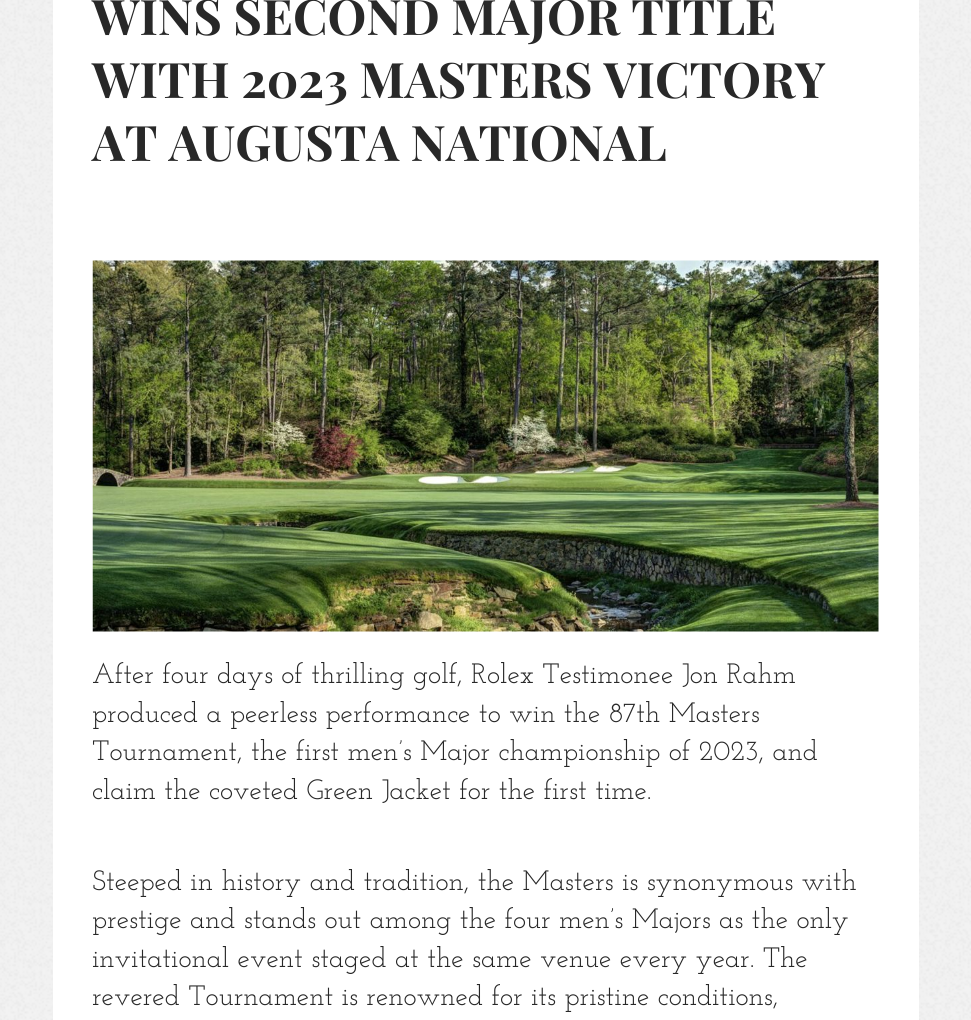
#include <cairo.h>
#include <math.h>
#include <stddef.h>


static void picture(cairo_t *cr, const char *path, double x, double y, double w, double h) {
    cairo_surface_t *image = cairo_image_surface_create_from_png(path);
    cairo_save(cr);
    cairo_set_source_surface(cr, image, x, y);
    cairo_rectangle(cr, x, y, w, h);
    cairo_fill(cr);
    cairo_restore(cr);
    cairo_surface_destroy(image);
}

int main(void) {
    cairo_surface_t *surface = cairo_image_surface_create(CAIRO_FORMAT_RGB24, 971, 1020);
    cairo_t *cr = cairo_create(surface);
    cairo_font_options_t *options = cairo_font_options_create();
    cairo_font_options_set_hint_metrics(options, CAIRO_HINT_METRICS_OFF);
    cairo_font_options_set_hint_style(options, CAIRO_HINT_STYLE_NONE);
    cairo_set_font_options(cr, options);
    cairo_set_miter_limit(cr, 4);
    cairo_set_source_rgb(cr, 1, 1, 1);
    cairo_paint(cr);
    picture(cr, "img1.png", 0, 0, 971, 1020);
    cairo_set_source_rgb(cr, 1, 1, 1);
    cairo_rectangle(cr, 53, 0, 866, 1020);
    cairo_fill(cr);
    cairo_select_font_face(cr, "Playfair Display", CAIRO_FONT_SLANT_NORMAL, CAIRO_FONT_WEIGHT_BOLD);
    cairo_set_font_size(cr, 49);
    cairo_set_source_rgb(cr, 0.157, 0.157, 0.157);
    cairo_move_to(cr, 92, 35);
    cairo_show_text(cr, "WINS SECOND MAJOR TITLE");
    cairo_move_to(cr, 92, 98);
    cairo_show_text(cr, "WITH 2023 MASTERS VICTORY");
    cairo_move_to(cr, 92, 161);
    cairo_show_text(cr, "AT AUGUSTA NATIONAL");
    picture(cr, "img2.png", 92, 260, 787, 372);
    cairo_select_font_face(cr, "Josefin Slab Thin", CAIRO_FONT_SLANT_NORMAL, CAIRO_FONT_WEIGHT_NORMAL);
    cairo_set_font_size(cr, 28);
    cairo_move_to(cr, 92, 683);
    cairo_show_text(cr, "After four days of thrilling golf, Rolex Testimonee Jon Rahm");
    cairo_move_to(cr, 92, 722);
    cairo_show_text(cr, "produced a peerless performance to win the 87th Masters");
    cairo_move_to(cr, 92, 760);
    cairo_show_text(cr, "Tournament, the first men’s Major championship of 2023, and");
    cairo_move_to(cr, 92, 799);
    cairo_show_text(cr, "claim the coveted Green Jacket for the first time.");
    cairo_move_to(cr, 92, 890);
    cairo_show_text(cr, "Steeped in history and tradition, the Masters is synonymous with");
    cairo_move_to(cr, 92, 928);
    cairo_show_text(cr, "prestige and stands out among the four men’s Majors as the only");
    cairo_move_to(cr, 92, 967);
    cairo_show_text(cr, "invitational event staged at the same venue every year. The");
    cairo_move_to(cr, 92, 1005);
    cairo_show_text(cr, "revered Tournament is renowned for its pristine conditions,");
    cairo_surface_write_to_png(surface, "page.png");
    cairo_font_options_destroy(options);
    cairo_destroy(cr);
    cairo_surface_destroy(surface);
    return 0;
}
